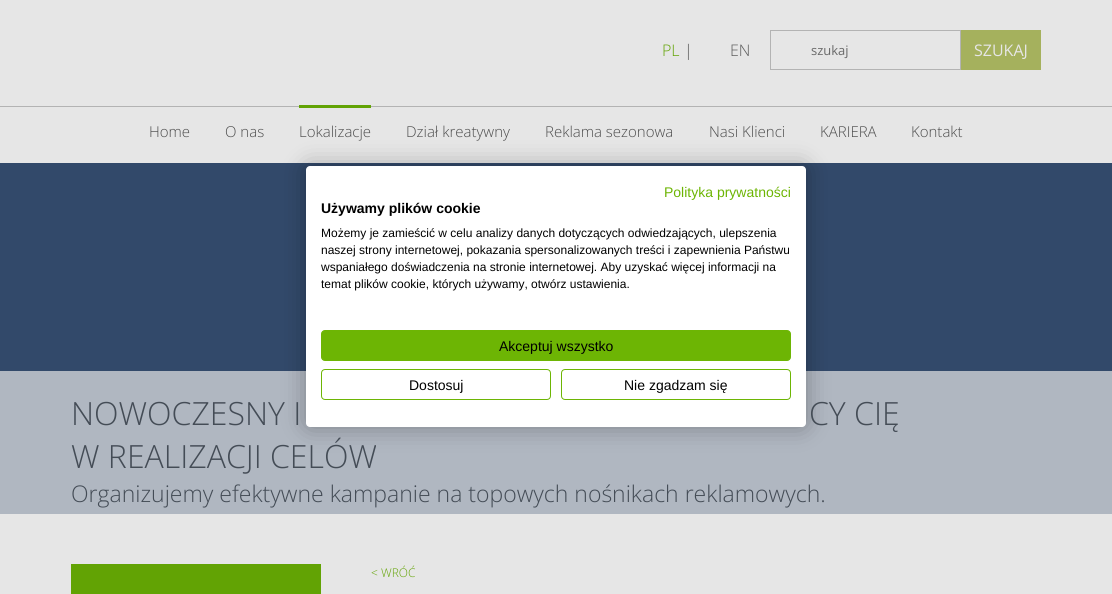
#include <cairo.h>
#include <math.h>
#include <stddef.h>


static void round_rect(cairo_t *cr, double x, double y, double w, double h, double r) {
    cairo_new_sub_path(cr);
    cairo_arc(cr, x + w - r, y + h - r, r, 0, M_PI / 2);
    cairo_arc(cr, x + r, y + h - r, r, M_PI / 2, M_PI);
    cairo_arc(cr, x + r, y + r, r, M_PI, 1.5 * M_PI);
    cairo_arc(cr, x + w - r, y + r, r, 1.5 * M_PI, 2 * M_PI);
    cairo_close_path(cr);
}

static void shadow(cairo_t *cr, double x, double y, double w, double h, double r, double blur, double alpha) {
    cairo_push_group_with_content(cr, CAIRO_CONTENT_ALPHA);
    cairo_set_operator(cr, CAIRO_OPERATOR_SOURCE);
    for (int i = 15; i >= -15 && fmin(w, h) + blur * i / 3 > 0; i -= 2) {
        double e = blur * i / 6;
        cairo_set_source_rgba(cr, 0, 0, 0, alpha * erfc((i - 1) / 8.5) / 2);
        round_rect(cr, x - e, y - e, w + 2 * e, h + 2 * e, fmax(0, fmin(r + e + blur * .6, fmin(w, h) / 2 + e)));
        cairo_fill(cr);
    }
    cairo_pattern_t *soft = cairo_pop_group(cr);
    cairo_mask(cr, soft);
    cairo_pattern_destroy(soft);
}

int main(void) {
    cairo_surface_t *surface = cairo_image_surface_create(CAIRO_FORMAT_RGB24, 1112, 594);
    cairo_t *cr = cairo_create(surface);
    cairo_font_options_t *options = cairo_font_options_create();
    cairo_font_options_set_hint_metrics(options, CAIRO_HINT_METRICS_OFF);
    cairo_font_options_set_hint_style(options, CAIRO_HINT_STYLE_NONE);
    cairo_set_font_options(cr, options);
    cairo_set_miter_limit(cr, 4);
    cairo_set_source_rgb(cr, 0.902, 0.902, 0.902);
    cairo_paint(cr);
    cairo_set_source_rgb(cr, 0.702, 0.702, 0.702);
    cairo_rectangle(cr, 0, 106, 1112, 1);
    cairo_fill(cr);
    cairo_select_font_face(cr, "Open Sans Light", CAIRO_FONT_SLANT_NORMAL, CAIRO_FONT_WEIGHT_NORMAL);
    cairo_set_font_size(cr, 16);
    cairo_set_source_rgb(cr, 0.384, 0.639, 0.016);
    cairo_move_to(cr, 662, 56);
    cairo_show_text(cr, "PL");
    cairo_set_source_rgb(cr, 0.302, 0.302, 0.302);
    cairo_move_to(cr, 684, 56);
    cairo_show_text(cr, "|");
    cairo_set_source_rgb(cr, 0.361, 0.361, 0.361);
    cairo_move_to(cr, 730, 56);
    cairo_show_text(cr, "EN");
    cairo_rectangle(cr, 770.5, 30.5, 190, 39);
    cairo_set_source_rgb(cr, 0.702, 0.702, 0.702);
    cairo_set_line_width(cr, 1);
    cairo_stroke(cr);
    cairo_select_font_face(cr, "Open Sans", CAIRO_FONT_SLANT_NORMAL, CAIRO_FONT_WEIGHT_NORMAL);
    cairo_set_font_size(cr, 13);
    cairo_set_source_rgb(cr, 0.412, 0.412, 0.412);
    cairo_move_to(cr, 811, 55);
    cairo_show_text(cr, "szukaj");
    cairo_set_source_rgb(cr, 0.647, 0.694, 0.365);
    cairo_rectangle(cr, 961, 30, 80, 40);
    cairo_fill(cr);
    cairo_set_font_size(cr, 16);
    cairo_set_source_rgb(cr, 0.902, 0.902, 0.902);
    cairo_move_to(cr, 974, 56);
    cairo_show_text(cr, "SZUKAJ");
    cairo_select_font_face(cr, "Open Sans Light", CAIRO_FONT_SLANT_NORMAL, CAIRO_FONT_WEIGHT_NORMAL);
    cairo_set_font_size(cr, 15);
    cairo_set_source_rgb(cr, 0.302, 0.302, 0.302);
    cairo_move_to(cr, 149, 137);
    cairo_show_text(cr, "Home");
    cairo_move_to(cr, 225, 137);
    cairo_show_text(cr, "O nas");
    cairo_set_source_rgb(cr, 0.384, 0.639, 0.016);
    cairo_rectangle(cr, 299, 105, 72, 3);
    cairo_fill(cr);
    cairo_set_source_rgb(cr, 0.302, 0.302, 0.302);
    cairo_move_to(cr, 299, 137);
    cairo_show_text(cr, "Lokalizacje");
    cairo_move_to(cr, 406, 137);
    cairo_show_text(cr, "Dział kreatywny");
    cairo_move_to(cr, 545, 137);
    cairo_show_text(cr, "Reklama sezonowa");
    cairo_move_to(cr, 709, 137);
    cairo_show_text(cr, "Nasi Klienci");
    cairo_move_to(cr, 820, 137);
    cairo_show_text(cr, "KARIERA");
    cairo_move_to(cr, 911, 137);
    cairo_show_text(cr, "Kontakt");
    cairo_set_source_rgb(cr, 0.196, 0.286, 0.416);
    cairo_rectangle(cr, 0, 163, 1112, 208);
    cairo_fill(cr);
    cairo_set_source_rgb(cr, 0.69, 0.718, 0.757);
    cairo_rectangle(cr, 0, 371, 1112, 143);
    cairo_fill(cr);
    cairo_set_source_rgb(cr, 0, 0, 0);
    shadow(cr, 306, 166, 500, 261, 4, 12, 0.3);
    cairo_set_source_rgb(cr, 1, 1, 1);
    round_rect(cr, 306, 166, 500, 261, 4);
    cairo_fill(cr);
    cairo_select_font_face(cr, "Liberation Sans", CAIRO_FONT_SLANT_NORMAL, CAIRO_FONT_WEIGHT_NORMAL);
    cairo_set_font_size(cr, 14);
    cairo_set_source_rgb(cr, 0.427, 0.71, 0.016);
    cairo_move_to(cr, 664, 197);
    cairo_show_text(cr, "Polityka prywatności");
    cairo_select_font_face(cr, "Liberation Sans", CAIRO_FONT_SLANT_NORMAL, CAIRO_FONT_WEIGHT_BOLD);
    cairo_set_source_rgb(cr, 0, 0, 0);
    cairo_move_to(cr, 321, 213);
    cairo_show_text(cr, "Używamy plików cookie");
    cairo_select_font_face(cr, "Liberation Sans", CAIRO_FONT_SLANT_NORMAL, CAIRO_FONT_WEIGHT_NORMAL);
    cairo_set_font_size(cr, 12);
    cairo_move_to(cr, 321, 237);
    cairo_show_text(cr, "Możemy je zamieścić w celu analizy danych dotyczących odwiedzających, ulepszenia");
    cairo_move_to(cr, 321, 254);
    cairo_show_text(cr, "naszej strony internetowej, pokazania spersonalizowanych treści i zapewnienia Państwu");
    cairo_move_to(cr, 321, 271);
    cairo_show_text(cr, "wspaniałego doświadczenia na stronie internetowej. Aby uzyskać więcej informacji na");
    cairo_move_to(cr, 321, 288);
    cairo_show_text(cr, "temat plików cookie, których używamy, otwórz ustawienia.");
    cairo_set_source_rgb(cr, 0.427, 0.71, 0.016);
    round_rect(cr, 321.5, 330.5, 469, 30, 3.5);
    cairo_fill_preserve(cr);
    cairo_stroke(cr);
    cairo_set_font_size(cr, 14);
    cairo_set_source_rgb(cr, 0, 0, 0);
    cairo_move_to(cr, 499, 351);
    cairo_show_text(cr, "Akceptuj wszystko");
    round_rect(cr, 321.5, 369.5, 229, 30, 3.5);
    cairo_set_source_rgb(cr, 0.427, 0.71, 0.016);
    cairo_stroke(cr);
    cairo_set_source_rgb(cr, 0, 0, 0);
    cairo_move_to(cr, 409, 390);
    cairo_show_text(cr, "Dostosuj");
    round_rect(cr, 561.5, 369.5, 229, 30, 3.5);
    cairo_set_source_rgb(cr, 0.427, 0.71, 0.016);
    cairo_stroke(cr);
    cairo_set_source_rgb(cr, 0, 0, 0);
    cairo_move_to(cr, 624, 390);
    cairo_show_text(cr, "Nie zgadzam się");
    cairo_select_font_face(cr, "Open Sans Light", CAIRO_FONT_SLANT_NORMAL, CAIRO_FONT_WEIGHT_NORMAL);
    cairo_set_font_size(cr, 32);
    cairo_set_source_rgb(cr, 0.267, 0.298, 0.337);
    cairo_move_to(cr, 71, 425);
    cairo_show_text(cr, "NOWOCZESNY I");
    cairo_move_to(cr, 809, 425);
    cairo_show_text(cr, "CY CIĘ");
    cairo_move_to(cr, 71, 468);
    cairo_show_text(cr, "W REALIZACJI CELÓW");
    cairo_set_font_size(cr, 23);
    cairo_move_to(cr, 71, 502);
    cairo_show_text(cr, "Organizujemy efektywne kampanie na topowych nośnikach reklamowych.");
    cairo_set_source_rgb(cr, 0.384, 0.639, 0.016);
    cairo_rectangle(cr, 71, 564, 250, 30);
    cairo_fill(cr);
    cairo_set_font_size(cr, 12);
    cairo_move_to(cr, 371, 577);
    cairo_show_text(cr, "< WRÓĆ");
    cairo_surface_write_to_png(surface, "page.png");
    cairo_font_options_destroy(options);
    cairo_destroy(cr);
    cairo_surface_destroy(surface);
    return 0;
}
